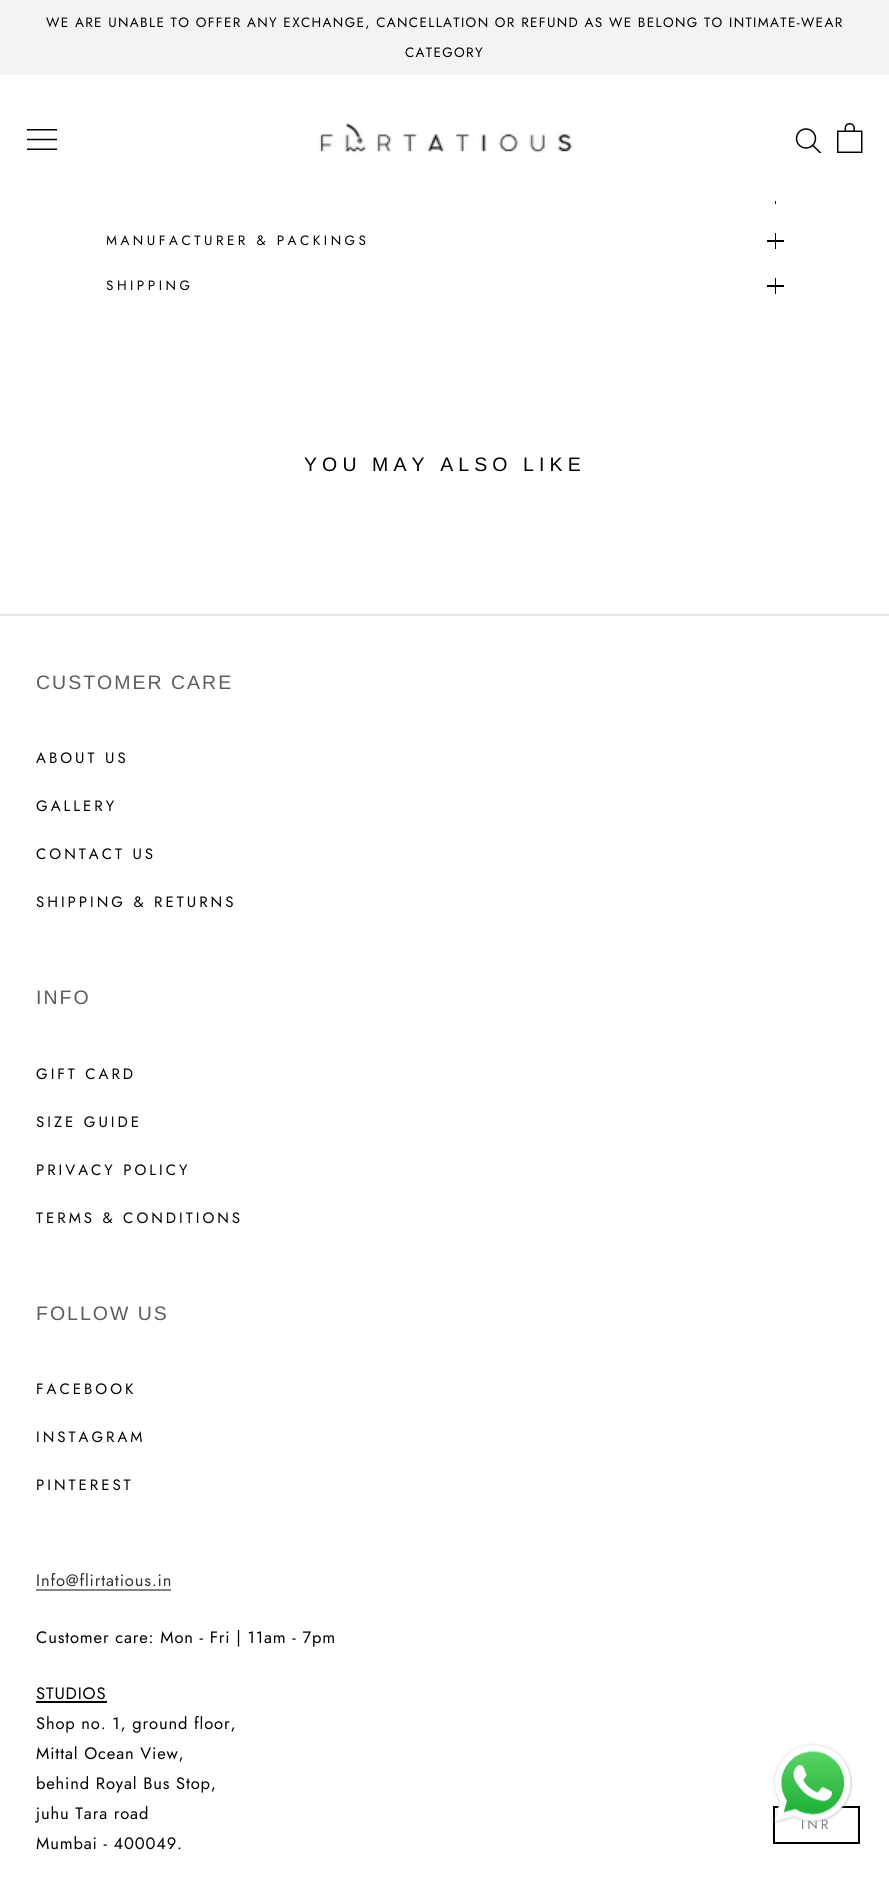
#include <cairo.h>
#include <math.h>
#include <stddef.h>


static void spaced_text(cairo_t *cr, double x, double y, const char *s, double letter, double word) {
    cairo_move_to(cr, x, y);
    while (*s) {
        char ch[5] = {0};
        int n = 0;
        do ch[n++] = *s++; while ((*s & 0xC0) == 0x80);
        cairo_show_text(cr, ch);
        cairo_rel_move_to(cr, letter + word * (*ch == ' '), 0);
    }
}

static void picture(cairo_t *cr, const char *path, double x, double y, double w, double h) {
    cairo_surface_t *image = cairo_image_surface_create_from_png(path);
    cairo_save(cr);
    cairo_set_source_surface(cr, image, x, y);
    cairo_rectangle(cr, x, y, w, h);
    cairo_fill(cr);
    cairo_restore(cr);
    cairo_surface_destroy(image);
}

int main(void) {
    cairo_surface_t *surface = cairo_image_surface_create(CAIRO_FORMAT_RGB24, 889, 1884);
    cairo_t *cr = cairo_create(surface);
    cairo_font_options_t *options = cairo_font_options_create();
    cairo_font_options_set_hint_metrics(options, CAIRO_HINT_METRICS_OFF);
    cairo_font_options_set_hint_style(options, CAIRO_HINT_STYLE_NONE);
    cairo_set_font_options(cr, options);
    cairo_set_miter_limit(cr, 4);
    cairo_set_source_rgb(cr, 1, 1, 1);
    cairo_paint(cr);
    cairo_set_source_rgb(cr, 0.953, 0.953, 0.953);
    cairo_rectangle(cr, 0, 0, 889, 75);
    cairo_fill(cr);
    cairo_select_font_face(cr, "Jost", CAIRO_FONT_SLANT_NORMAL, CAIRO_FONT_WEIGHT_NORMAL);
    cairo_set_font_size(cr, 13.5);
    cairo_set_source_rgb(cr, 0, 0, 0);
    spaced_text(cr, 46, 27, "WE ARE UNABLE TO OFFER ANY EXCHANGE, CANCELLATION OR REFUND AS WE BELONG TO INTIMATE-WEAR", 1.35, 0);
    spaced_text(cr, 405, 57, "CATEGORY", 1.35, 0);
    picture(cr, "img1.png", 27, 129, 30, 21);
    picture(cr, "img2.png", 318, 123, 255, 34);
    cairo_save(cr);
    cairo_rectangle(cr, 795, 128, 27, 25);
    cairo_clip(cr);
    cairo_new_path(cr);
    cairo_move_to(cr, 820.5, 153);
    cairo_line_to(cr, 813, 145.5);
    cairo_set_line_width(cr, 1.5);
    cairo_set_line_cap(cr, CAIRO_LINE_CAP_SQUARE);
    cairo_stroke(cr);
    cairo_restore(cr);
    cairo_arc(cr, 806, 138.5, 9.5, 0, 2 * M_PI);
    cairo_set_line_width(cr, 1.5);
    cairo_stroke(cr);
    picture(cr, "img3.png", 837, 123, 26, 30);
    cairo_rectangle(cr, 775, 201, 1, 3);
    cairo_fill(cr);
    cairo_save(cr);
    cairo_rectangle(cr, 107, 218, 678, 45);
    cairo_clip(cr);
    spaced_text(cr, 106, 245, "MANUFACTURER & PACKINGS", 3.5, 0);
    cairo_restore(cr);
    cairo_rectangle(cr, 775, 233, 1, 16);
    cairo_fill(cr);
    cairo_rectangle(cr, 767, 240, 17, 2);
    cairo_fill(cr);
    cairo_save(cr);
    cairo_rectangle(cr, 107, 263, 678, 45);
    cairo_clip(cr);
    spaced_text(cr, 106, 290, "SHIPPING", 3.5, 0);
    cairo_restore(cr);
    cairo_rectangle(cr, 775, 278, 1, 16);
    cairo_fill(cr);
    cairo_rectangle(cr, 767, 285, 17, 2);
    cairo_fill(cr);
    cairo_select_font_face(cr, "Liberation Sans", CAIRO_FONT_SLANT_NORMAL, CAIRO_FONT_WEIGHT_NORMAL);
    cairo_set_font_size(cr, 19.5);
    spaced_text(cr, 304, 471, "YOU MAY ALSO LIKE", 5.1, 0);
    cairo_set_source_rgb(cr, 0.906, 0.906, 0.906);
    cairo_rectangle(cr, 0, 614, 889, 2);
    cairo_fill(cr);
    cairo_set_source_rgb(cr, 0.361, 0.361, 0.361);
    spaced_text(cr, 36, 689, "CUSTOMER CARE", 2, 0);
    cairo_select_font_face(cr, "Jost", CAIRO_FONT_SLANT_NORMAL, CAIRO_FONT_WEIGHT_NORMAL);
    cairo_set_font_size(cr, 15);
    cairo_set_source_rgb(cr, 0, 0, 0);
    spaced_text(cr, 36, 763, "ABOUT US", 3, 0);
    spaced_text(cr, 36, 811, "GALLERY", 3, 0);
    spaced_text(cr, 36, 859, "CONTACT US", 3, 0);
    spaced_text(cr, 36, 907, "SHIPPING & RETURNS", 3, 0);
    cairo_select_font_face(cr, "Liberation Sans", CAIRO_FONT_SLANT_NORMAL, CAIRO_FONT_WEIGHT_NORMAL);
    cairo_set_font_size(cr, 19.5);
    cairo_set_source_rgb(cr, 0.361, 0.361, 0.361);
    spaced_text(cr, 36, 1004, "INFO", 2, 0);
    cairo_select_font_face(cr, "Jost", CAIRO_FONT_SLANT_NORMAL, CAIRO_FONT_WEIGHT_NORMAL);
    cairo_set_font_size(cr, 15);
    cairo_set_source_rgb(cr, 0, 0, 0);
    spaced_text(cr, 36, 1079, "GIFT CARD", 3, 0);
    spaced_text(cr, 36, 1127, "SIZE GUIDE", 3, 0);
    spaced_text(cr, 36, 1175, "PRIVACY POLICY", 3, 0);
    spaced_text(cr, 36, 1223, "TERMS & CONDITIONS", 3, 0);
    cairo_select_font_face(cr, "Liberation Sans", CAIRO_FONT_SLANT_NORMAL, CAIRO_FONT_WEIGHT_NORMAL);
    cairo_set_font_size(cr, 19.5);
    cairo_set_source_rgb(cr, 0.361, 0.361, 0.361);
    spaced_text(cr, 36, 1320, "FOLLOW US", 2, 0);
    cairo_select_font_face(cr, "Jost", CAIRO_FONT_SLANT_NORMAL, CAIRO_FONT_WEIGHT_NORMAL);
    cairo_set_font_size(cr, 15);
    cairo_set_source_rgb(cr, 0, 0, 0);
    spaced_text(cr, 36, 1394, "FACEBOOK", 3, 0);
    spaced_text(cr, 36, 1442, "INSTAGRAM", 3, 0);
    spaced_text(cr, 36, 1490, "PINTEREST", 3, 0);
    cairo_set_font_size(cr, 16.5);
    cairo_set_source_rgb(cr, 0.196, 0.196, 0.196);
    spaced_text(cr, 36, 1586, "Info@flirtatious.in", 0.85, 0);
    cairo_set_source_rgb(cr, 0.518, 0.518, 0.518);
    cairo_rectangle(cr, 36, 1589, 135, 2);
    cairo_fill(cr);
    cairo_set_source_rgb(cr, 0, 0, 0);
    spaced_text(cr, 36, 1643, "Customer care: Mon - Fri | 11am - 7pm", 0.85, 0);
    spaced_text(cr, 36, 1699, "STUDIOS", 0.85, 0);
    cairo_rectangle(cr, 36, 1701, 71, 2);
    cairo_fill(cr);
    spaced_text(cr, 36, 1729, "Shop no. 1, ground floor,", 0.85, 0);
    spaced_text(cr, 36, 1759, "Mittal Ocean View,", 0.85, 0);
    spaced_text(cr, 36, 1789, "behind Royal Bus Stop,", 0.85, 0);
    spaced_text(cr, 36, 1819, "juhu Tara road", 0.85, 0);
    spaced_text(cr, 36, 1849, "Mumbai - 400049.", 0.85, 0);
    cairo_rectangle(cr, 774, 1807, 85, 36);
    cairo_set_line_width(cr, 2);
    cairo_stroke(cr);
    cairo_set_font_size(cr, 13.5);
    cairo_set_source_rgb(cr, 0.498, 0.498, 0.498);
    spaced_text(cr, 801, 1829, "INR", 3, 0);
    picture(cr, "img4.png", 773, 1743, 80, 80);
    cairo_surface_write_to_png(surface, "page.png");
    cairo_font_options_destroy(options);
    cairo_destroy(cr);
    cairo_surface_destroy(surface);
    return 0;
}
